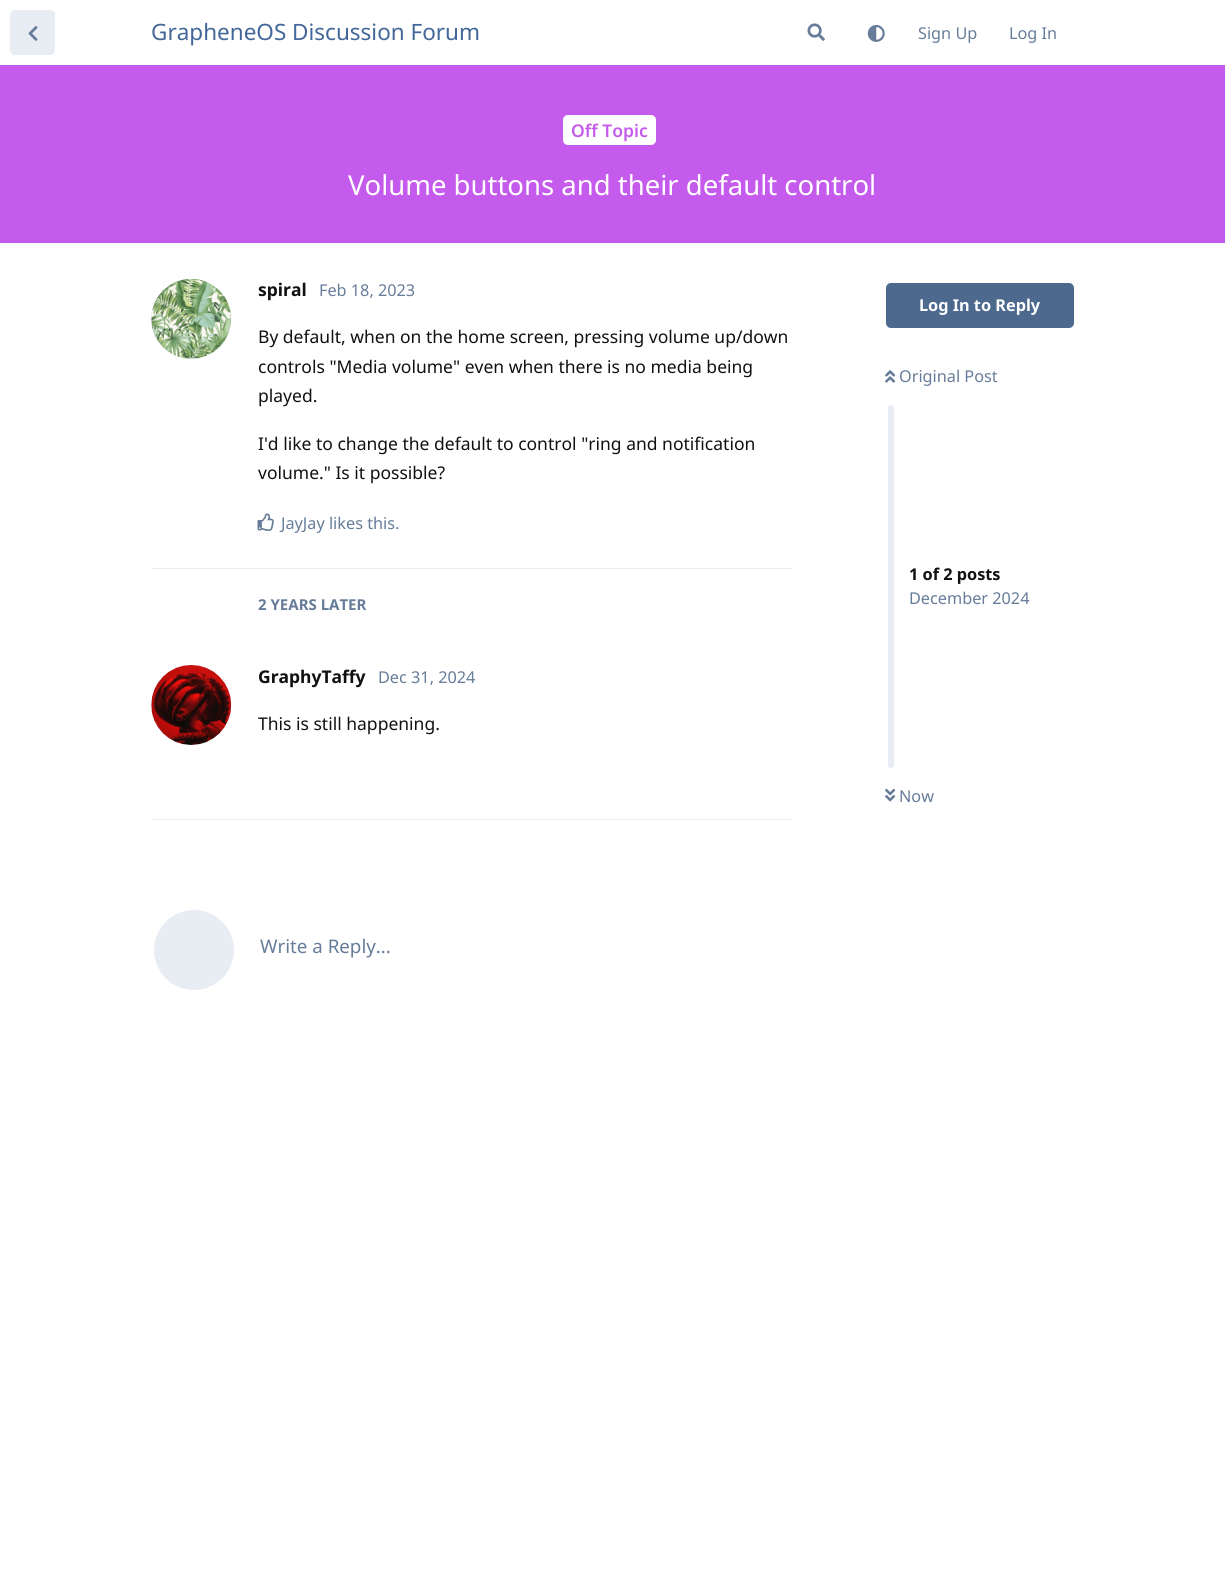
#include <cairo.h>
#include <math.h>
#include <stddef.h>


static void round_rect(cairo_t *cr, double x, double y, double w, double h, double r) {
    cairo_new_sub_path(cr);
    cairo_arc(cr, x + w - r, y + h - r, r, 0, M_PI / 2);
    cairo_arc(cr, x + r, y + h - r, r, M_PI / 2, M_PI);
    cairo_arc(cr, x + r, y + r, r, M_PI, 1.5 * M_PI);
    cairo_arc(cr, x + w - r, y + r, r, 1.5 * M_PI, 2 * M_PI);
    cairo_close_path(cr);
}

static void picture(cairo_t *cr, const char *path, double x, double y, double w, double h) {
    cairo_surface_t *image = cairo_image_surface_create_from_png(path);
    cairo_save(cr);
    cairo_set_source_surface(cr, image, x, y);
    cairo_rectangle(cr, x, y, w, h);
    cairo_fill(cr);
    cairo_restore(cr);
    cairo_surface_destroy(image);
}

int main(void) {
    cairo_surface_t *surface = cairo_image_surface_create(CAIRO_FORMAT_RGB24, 1225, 1585);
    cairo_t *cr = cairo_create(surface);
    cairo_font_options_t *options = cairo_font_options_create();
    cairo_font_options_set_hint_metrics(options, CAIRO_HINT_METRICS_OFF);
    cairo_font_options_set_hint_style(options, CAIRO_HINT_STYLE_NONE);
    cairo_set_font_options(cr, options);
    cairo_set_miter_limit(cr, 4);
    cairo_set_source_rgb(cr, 1, 1, 1);
    cairo_paint(cr);
    cairo_set_source_rgb(cr, 0.91, 0.925, 0.953);
    round_rect(cr, 10, 10, 45, 45, 5);
    cairo_fill(cr);
    picture(cr, "img1.png", 28, 26, 10, 15);
    cairo_select_font_face(cr, "Noto Sans", CAIRO_FONT_SLANT_NORMAL, CAIRO_FONT_WEIGHT_NORMAL);
    cairo_set_font_size(cr, 22.5);
    cairo_set_source_rgb(cr, 0.259, 0.404, 0.6);
    cairo_move_to(cr, 151, 40);
    cairo_show_text(cr, "GrapheneOS Discussion Forum");
    picture(cr, "img2.png", 807, 23, 18, 18);
    picture(cr, "img3.png", 867, 25, 18, 17);
    cairo_set_font_size(cr, 16.25);
    cairo_set_source_rgb(cr, 0.4, 0.486, 0.6);
    cairo_move_to(cr, 918, 39);
    cairo_show_text(cr, "Sign Up");
    cairo_move_to(cr, 1009, 39);
    cairo_show_text(cr, "Log In");
    cairo_set_source_rgb(cr, 0.773, 0.357, 0.925);
    cairo_rectangle(cr, 0, 65, 1225, 178);
    cairo_fill(cr);
    cairo_set_source_rgb(cr, 1, 1, 1);
    round_rect(cr, 563, 115, 93, 30, 5);
    cairo_fill(cr);
    cairo_select_font_face(cr, "Noto Sans SemiBold", CAIRO_FONT_SLANT_NORMAL, CAIRO_FONT_WEIGHT_NORMAL);
    cairo_set_font_size(cr, 17.5);
    cairo_set_source_rgb(cr, 0.773, 0.357, 0.925);
    cairo_move_to(cr, 571, 137);
    cairo_show_text(cr, "Off Topic");
    cairo_select_font_face(cr, "Noto Sans", CAIRO_FONT_SLANT_NORMAL, CAIRO_FONT_WEIGHT_NORMAL);
    cairo_set_font_size(cr, 27.5);
    cairo_set_source_rgb(cr, 1, 1, 1);
    cairo_move_to(cr, 348, 195);
    cairo_show_text(cr, "Volume buttons and their default control");
    cairo_set_source_rgb(cr, 0.91, 0.925, 0.953);
    cairo_rectangle(cr, 151, 568, 642, 1);
    cairo_fill(cr);
    cairo_arc(cr, 191, 319, 40, 0, 2 * M_PI);
    cairo_fill(cr);
    picture(cr, "img4.png", 151, 278, 81, 81);
    cairo_select_font_face(cr, "Noto Sans", CAIRO_FONT_SLANT_NORMAL, CAIRO_FONT_WEIGHT_BOLD);
    cairo_set_font_size(cr, 17.5);
    cairo_set_source_rgb(cr, 0.067, 0.067, 0.067);
    cairo_move_to(cr, 258, 296);
    cairo_show_text(cr, "spiral");
    cairo_select_font_face(cr, "Noto Sans", CAIRO_FONT_SLANT_NORMAL, CAIRO_FONT_WEIGHT_NORMAL);
    cairo_set_font_size(cr, 16.25);
    cairo_set_source_rgb(cr, 0.4, 0.486, 0.6);
    cairo_move_to(cr, 319, 296);
    cairo_show_text(cr, "Feb 18, 2023");
    cairo_set_font_size(cr, 17.5);
    cairo_set_source_rgb(cr, 0.067, 0.067, 0.067);
    cairo_move_to(cr, 258, 343);
    cairo_show_text(cr, "By default, when on the home screen, pressing volume up/down");
    cairo_move_to(cr, 258, 373);
    cairo_show_text(cr, "controls \"Media volume\" even when there is no media being");
    cairo_move_to(cr, 258, 402);
    cairo_show_text(cr, "played.");
    cairo_move_to(cr, 258, 450);
    cairo_show_text(cr, "I'd like to change the default to control \"ring and notification");
    cairo_move_to(cr, 258, 479);
    cairo_show_text(cr, "volume.\" Is it possible?");
    picture(cr, "img5.png", 257, 513, 17, 18);
    cairo_set_font_size(cr, 16.25);
    cairo_set_source_rgb(cr, 0.4, 0.486, 0.6);
    cairo_move_to(cr, 281, 529);
    cairo_show_text(cr, "JayJay likes this.");
    cairo_set_source_rgb(cr, 0.91, 0.925, 0.953);
    cairo_rectangle(cr, 151, 819, 642, 1);
    cairo_fill(cr);
    cairo_select_font_face(cr, "Noto Sans", CAIRO_FONT_SLANT_NORMAL, CAIRO_FONT_WEIGHT_BOLD);
    cairo_set_font_size(cr, 15);
    cairo_set_source_rgb(cr, 0.4, 0.486, 0.6);
    cairo_move_to(cr, 258, 610);
    cairo_show_text(cr, "2 YEARS LATER");
    cairo_set_source_rgb(cr, 0.91, 0.925, 0.953);
    cairo_new_path(cr);
    cairo_arc(cr, 191, 705, 40, 0, 2 * M_PI);
    cairo_fill(cr);
    picture(cr, "img6.png", 151, 665, 81, 80);
    cairo_set_font_size(cr, 17.5);
    cairo_set_source_rgb(cr, 0.067, 0.067, 0.067);
    cairo_move_to(cr, 258, 683);
    cairo_show_text(cr, "GraphyTaffy");
    cairo_select_font_face(cr, "Noto Sans", CAIRO_FONT_SLANT_NORMAL, CAIRO_FONT_WEIGHT_NORMAL);
    cairo_set_font_size(cr, 16.25);
    cairo_set_source_rgb(cr, 0.4, 0.486, 0.6);
    cairo_move_to(cr, 378, 683);
    cairo_show_text(cr, "Dec 31, 2024");
    cairo_set_font_size(cr, 17.5);
    cairo_set_source_rgb(cr, 0.067, 0.067, 0.067);
    cairo_move_to(cr, 258, 730);
    cairo_show_text(cr, "This is still happening.");
    cairo_set_source_rgb(cr, 0.91, 0.925, 0.953);
    cairo_new_path(cr);
    cairo_arc(cr, 194, 950, 40, 0, 2 * M_PI);
    cairo_fill(cr);
    cairo_set_font_size(cr, 18.75);
    cairo_set_source_rgb(cr, 0.4, 0.486, 0.6);
    cairo_move_to(cr, 260, 953);
    cairo_show_text(cr, "Write a Reply...");
    cairo_set_source_rgb(cr, 0.302, 0.412, 0.557);
    round_rect(cr, 886, 283, 188, 45, 5);
    cairo_fill(cr);
    cairo_select_font_face(cr, "Noto Sans", CAIRO_FONT_SLANT_NORMAL, CAIRO_FONT_WEIGHT_BOLD);
    cairo_set_font_size(cr, 16.25);
    cairo_set_source_rgb(cr, 1, 1, 1);
    cairo_move_to(cr, 919, 311);
    cairo_show_text(cr, "Log In to Reply");
    picture(cr, "img7.png", 885, 370, 11, 13);
    cairo_select_font_face(cr, "Noto Sans", CAIRO_FONT_SLANT_NORMAL, CAIRO_FONT_WEIGHT_NORMAL);
    cairo_set_source_rgb(cr, 0.4, 0.486, 0.6);
    cairo_move_to(cr, 899, 382);
    cairo_show_text(cr, "Original Post");
    cairo_set_source_rgb(cr, 0.91, 0.925, 0.953);
    round_rect(cr, 888, 405, 6, 363, 3);
    cairo_fill(cr);
    cairo_select_font_face(cr, "Noto Sans", CAIRO_FONT_SLANT_NORMAL, CAIRO_FONT_WEIGHT_BOLD);
    cairo_set_source_rgb(cr, 0.067, 0.067, 0.067);
    cairo_move_to(cr, 909, 580);
    cairo_show_text(cr, "1 of 2 posts");
    cairo_select_font_face(cr, "Noto Sans", CAIRO_FONT_SLANT_NORMAL, CAIRO_FONT_WEIGHT_NORMAL);
    cairo_set_source_rgb(cr, 0.4, 0.486, 0.6);
    cairo_move_to(cr, 909, 604);
    cairo_show_text(cr, "December 2024");
    picture(cr, "img8.png", 885, 788, 11, 14);
    cairo_move_to(cr, 899, 802);
    cairo_show_text(cr, "Now");
    cairo_surface_write_to_png(surface, "page.png");
    cairo_font_options_destroy(options);
    cairo_destroy(cr);
    cairo_surface_destroy(surface);
    return 0;
}
